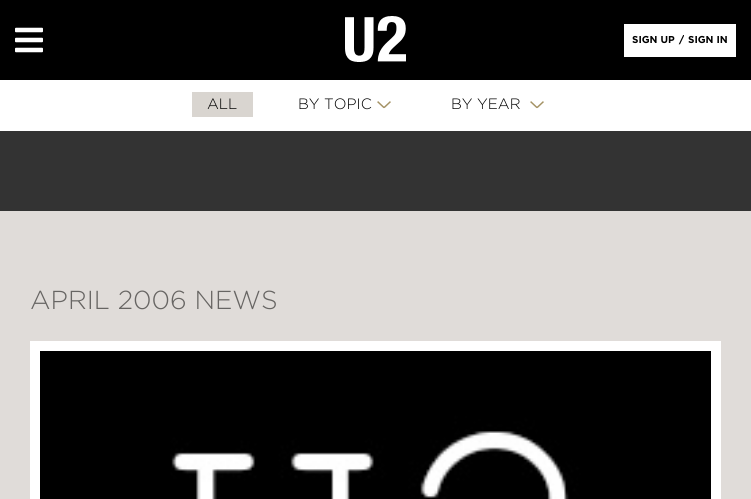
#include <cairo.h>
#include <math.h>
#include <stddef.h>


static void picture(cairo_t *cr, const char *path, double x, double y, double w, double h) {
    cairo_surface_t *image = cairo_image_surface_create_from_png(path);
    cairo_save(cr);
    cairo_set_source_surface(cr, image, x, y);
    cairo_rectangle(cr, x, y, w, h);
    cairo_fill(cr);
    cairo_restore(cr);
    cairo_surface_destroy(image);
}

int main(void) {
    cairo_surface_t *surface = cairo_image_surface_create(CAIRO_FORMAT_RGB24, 751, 499);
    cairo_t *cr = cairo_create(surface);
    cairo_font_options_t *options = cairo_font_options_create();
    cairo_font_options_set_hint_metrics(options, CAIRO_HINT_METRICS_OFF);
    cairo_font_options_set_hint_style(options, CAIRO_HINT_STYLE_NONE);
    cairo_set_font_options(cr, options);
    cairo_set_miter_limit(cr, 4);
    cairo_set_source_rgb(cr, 1, 1, 1);
    cairo_paint(cr);
    cairo_set_source_rgb(cr, 0, 0, 0);
    cairo_rectangle(cr, 0, 0, 751, 80);
    cairo_fill(cr);
    picture(cr, "img1.png", 15, 27, 28, 26);
    picture(cr, "img2.png", 345, 16, 61, 46);
    cairo_set_source_rgb(cr, 1, 1, 1);
    cairo_rectangle(cr, 624, 24, 112, 33);
    cairo_fill(cr);
    cairo_select_font_face(cr, "Gotham", CAIRO_FONT_SLANT_NORMAL, CAIRO_FONT_WEIGHT_BOLD);
    cairo_set_font_size(cr, 10);
    cairo_set_source_rgb(cr, 0, 0, 0);
    cairo_move_to(cr, 632, 43);
    cairo_show_text(cr, "SIGN UP");
    cairo_move_to(cr, 679, 43);
    cairo_show_text(cr, "/");
    cairo_set_source_rgb(cr, 1, 1, 1);
    cairo_rectangle(cr, 684, 35, 1, 1);
    cairo_fill(cr);
    cairo_set_source_rgb(cr, 0, 0, 0);
    cairo_move_to(cr, 688, 43);
    cairo_show_text(cr, "SIGN IN");
    cairo_set_source_rgb(cr, 0.851, 0.835, 0.816);
    cairo_rectangle(cr, 192, 92, 61, 25);
    cairo_fill(cr);
    cairo_select_font_face(cr, "Gotham Light", CAIRO_FONT_SLANT_NORMAL, CAIRO_FONT_WEIGHT_NORMAL);
    cairo_set_font_size(cr, 15);
    cairo_set_source_rgb(cr, 0, 0, 0);
    cairo_move_to(cr, 207, 109);
    cairo_show_text(cr, "ALL");
    cairo_move_to(cr, 298, 109);
    cairo_show_text(cr, "BY TOPIC");
    picture(cr, "img3.png", 377, 101, 14, 8);
    cairo_move_to(cr, 451, 109);
    cairo_show_text(cr, "BY YEAR");
    picture(cr, "img3.png", 530, 101, 14, 8);
    cairo_set_source_rgb(cr, 0.2, 0.2, 0.2);
    cairo_rectangle(cr, 0, 131, 751, 80);
    cairo_fill(cr);
    cairo_set_source_rgb(cr, 0.878, 0.863, 0.851);
    cairo_rectangle(cr, 0, 211, 751, 288);
    cairo_fill(cr);
    cairo_set_font_size(cr, 26);
    cairo_set_source_rgb(cr, 0.404, 0.396, 0.388);
    cairo_move_to(cr, 30, 309);
    cairo_show_text(cr, "APRIL 2006 NEWS");
    cairo_set_source_rgb(cr, 1, 1, 1);
    cairo_rectangle(cr, 30, 341, 691, 158);
    cairo_fill(cr);
    picture(cr, "img4.png", 40, 351, 671, 148);
    cairo_surface_write_to_png(surface, "page.png");
    cairo_font_options_destroy(options);
    cairo_destroy(cr);
    cairo_surface_destroy(surface);
    return 0;
}
